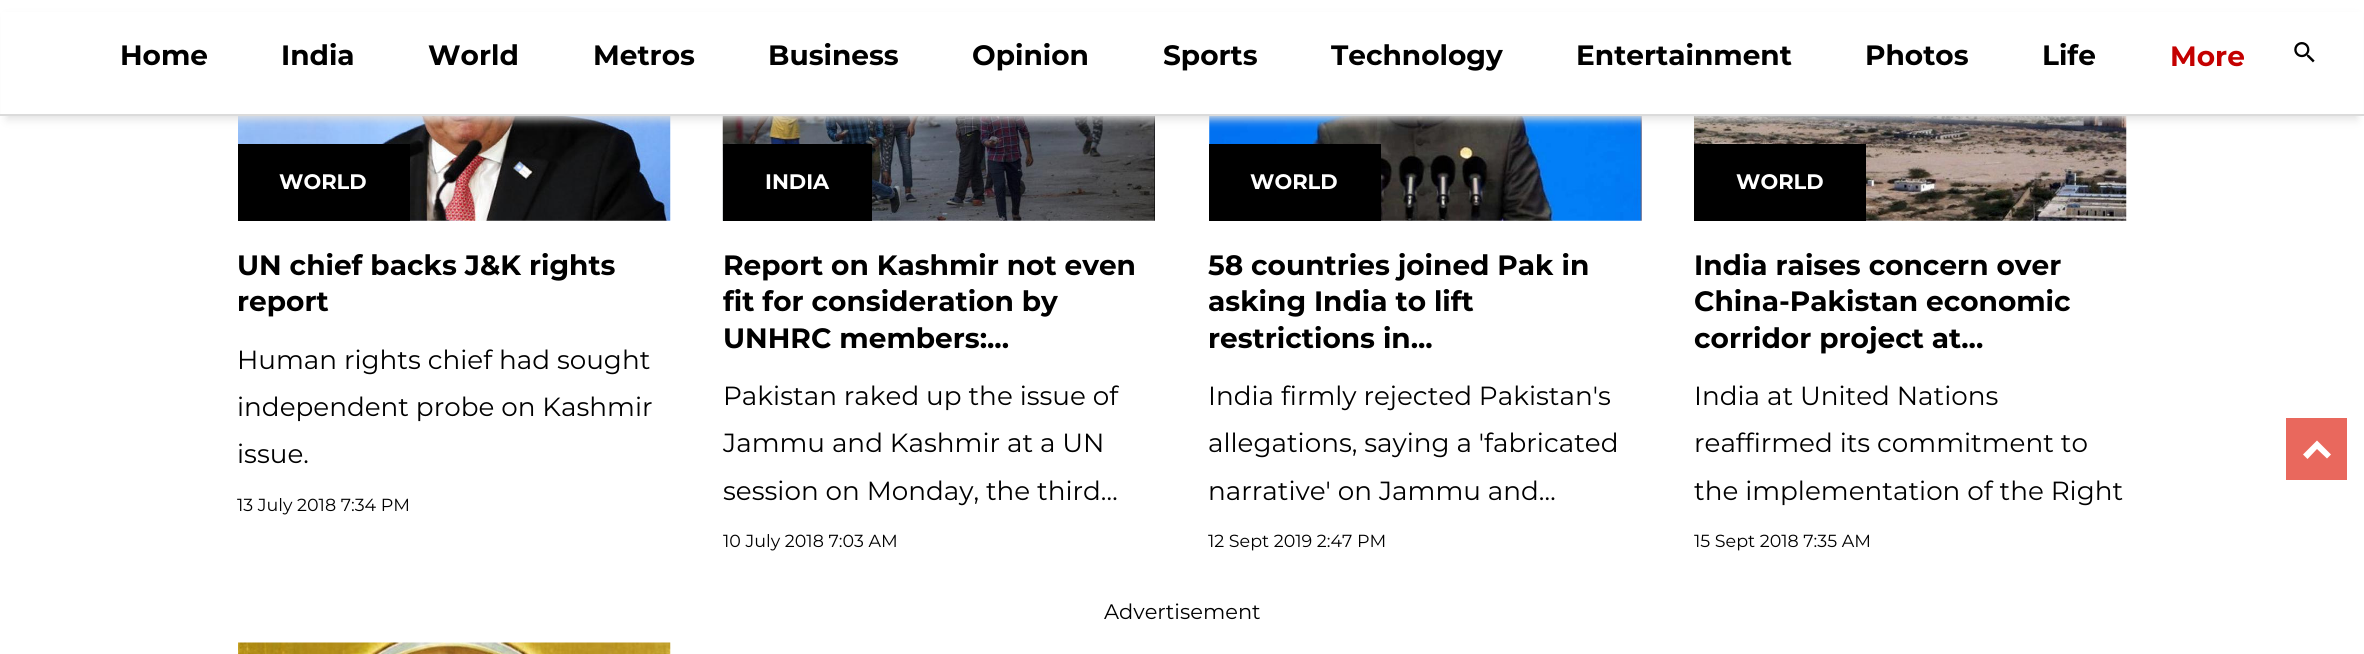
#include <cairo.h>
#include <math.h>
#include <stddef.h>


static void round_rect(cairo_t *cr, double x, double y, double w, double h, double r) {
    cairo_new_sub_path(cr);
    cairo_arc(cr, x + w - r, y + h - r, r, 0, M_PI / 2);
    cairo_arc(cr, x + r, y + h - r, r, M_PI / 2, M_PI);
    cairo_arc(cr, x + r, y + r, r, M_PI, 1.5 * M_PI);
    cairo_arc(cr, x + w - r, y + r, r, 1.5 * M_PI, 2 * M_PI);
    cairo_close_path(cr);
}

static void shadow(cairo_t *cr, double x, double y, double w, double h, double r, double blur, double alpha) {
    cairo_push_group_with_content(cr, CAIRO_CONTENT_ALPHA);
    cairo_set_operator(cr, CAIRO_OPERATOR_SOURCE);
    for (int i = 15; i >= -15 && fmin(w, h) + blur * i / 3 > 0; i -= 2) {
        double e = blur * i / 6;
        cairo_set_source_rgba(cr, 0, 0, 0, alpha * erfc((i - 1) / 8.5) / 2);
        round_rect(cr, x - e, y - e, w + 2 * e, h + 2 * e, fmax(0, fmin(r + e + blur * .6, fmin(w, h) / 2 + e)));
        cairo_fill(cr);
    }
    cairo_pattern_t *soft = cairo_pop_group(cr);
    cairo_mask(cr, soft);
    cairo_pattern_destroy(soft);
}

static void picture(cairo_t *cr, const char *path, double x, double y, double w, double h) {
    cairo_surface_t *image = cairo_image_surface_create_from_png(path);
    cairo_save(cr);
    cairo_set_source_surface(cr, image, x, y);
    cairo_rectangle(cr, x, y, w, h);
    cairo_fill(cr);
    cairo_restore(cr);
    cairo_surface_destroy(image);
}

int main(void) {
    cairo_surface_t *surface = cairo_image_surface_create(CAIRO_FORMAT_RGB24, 2364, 654);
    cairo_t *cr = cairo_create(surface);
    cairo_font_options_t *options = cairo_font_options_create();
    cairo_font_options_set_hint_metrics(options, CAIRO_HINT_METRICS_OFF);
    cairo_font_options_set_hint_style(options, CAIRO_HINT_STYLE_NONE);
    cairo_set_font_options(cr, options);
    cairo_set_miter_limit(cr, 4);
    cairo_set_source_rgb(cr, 1, 1, 1);
    cairo_paint(cr);
    picture(cr, "img2.png", 238, 116, 433, 105);
    picture(cr, "img3.png", 722, 116, 433, 105);
    picture(cr, "img4.png", 1209, 116, 433, 105);
    picture(cr, "img5.png", 1694, 116, 433, 105);
    cairo_set_source_rgb(cr, 0.882, 0.882, 0.882);
    shadow(cr, 7, 18, 2350, 101, 0, 4.5, 1);
    cairo_set_source_rgb(cr, 1, 1, 1);
    cairo_rectangle(cr, 1, 12, 2362, 102);
    cairo_fill(cr);
    cairo_set_source_rgb(cr, 0.859, 0.859, 0.859);
    cairo_rectangle(cr, 0, 114, 2364, 2);
    cairo_fill(cr);
    cairo_select_font_face(cr, "Montserrat", CAIRO_FONT_SLANT_NORMAL, CAIRO_FONT_WEIGHT_BOLD);
    cairo_set_font_size(cr, 28);
    cairo_set_source_rgb(cr, 0, 0, 0);
    cairo_move_to(cr, 120, 65);
    cairo_show_text(cr, "Home");
    cairo_move_to(cr, 281, 65);
    cairo_show_text(cr, "India");
    cairo_move_to(cr, 428, 65);
    cairo_show_text(cr, "World");
    cairo_move_to(cr, 593, 65);
    cairo_show_text(cr, "Metros");
    cairo_move_to(cr, 768, 65);
    cairo_show_text(cr, "Business");
    cairo_move_to(cr, 972, 65);
    cairo_show_text(cr, "Opinion");
    cairo_move_to(cr, 1163, 65);
    cairo_show_text(cr, "Sports");
    cairo_move_to(cr, 1331, 65);
    cairo_show_text(cr, "Technology");
    cairo_move_to(cr, 1576, 65);
    cairo_show_text(cr, "Entertainment");
    cairo_move_to(cr, 1865, 65);
    cairo_show_text(cr, "Photos");
    cairo_move_to(cr, 2042, 65);
    cairo_show_text(cr, "Life");
    cairo_set_source_rgb(cr, 0.769, 0, 0);
    cairo_move_to(cr, 2170, 66);
    cairo_show_text(cr, "More");
    picture(cr, "img1.png", 2294, 42, 21, 21);
    cairo_set_source_rgb(cr, 0, 0, 0);
    cairo_rectangle(cr, 238, 144, 172, 77);
    cairo_fill(cr);
    cairo_set_font_size(cr, 21);
    cairo_set_source_rgb(cr, 1, 1, 1);
    cairo_move_to(cr, 279, 189);
    cairo_show_text(cr, "WORLD");
    cairo_set_font_size(cr, 28);
    cairo_set_source_rgb(cr, 0, 0, 0);
    cairo_move_to(cr, 237, 275);
    cairo_show_text(cr, "UN chief backs J&K rights");
    cairo_move_to(cr, 237, 311);
    cairo_show_text(cr, "report");
    cairo_select_font_face(cr, "Montserrat", CAIRO_FONT_SLANT_NORMAL, CAIRO_FONT_WEIGHT_NORMAL);
    cairo_set_font_size(cr, 26.25);
    cairo_move_to(cr, 237, 369);
    cairo_show_text(cr, "Human rights chief had sought");
    cairo_move_to(cr, 237, 416);
    cairo_show_text(cr, "independent probe on Kashmir");
    cairo_move_to(cr, 237, 463);
    cairo_show_text(cr, "issue.");
    cairo_set_font_size(cr, 17.5);
    cairo_move_to(cr, 237, 511);
    cairo_show_text(cr, "13 July 2018 7:34 PM");
    cairo_rectangle(cr, 723, 144, 149, 77);
    cairo_fill(cr);
    cairo_select_font_face(cr, "Montserrat", CAIRO_FONT_SLANT_NORMAL, CAIRO_FONT_WEIGHT_BOLD);
    cairo_set_font_size(cr, 21);
    cairo_set_source_rgb(cr, 1, 1, 1);
    cairo_move_to(cr, 765, 189);
    cairo_show_text(cr, "INDIA");
    cairo_set_font_size(cr, 28);
    cairo_set_source_rgb(cr, 0, 0, 0);
    cairo_move_to(cr, 723, 275);
    cairo_show_text(cr, "Report on Kashmir not even");
    cairo_move_to(cr, 723, 311);
    cairo_show_text(cr, "fit for consideration by");
    cairo_move_to(cr, 723, 348);
    cairo_show_text(cr, "UNHRC members:...");
    cairo_select_font_face(cr, "Montserrat", CAIRO_FONT_SLANT_NORMAL, CAIRO_FONT_WEIGHT_NORMAL);
    cairo_set_font_size(cr, 26.25);
    cairo_move_to(cr, 723, 405);
    cairo_show_text(cr, "Pakistan raked up the issue of");
    cairo_move_to(cr, 723, 452);
    cairo_show_text(cr, "Jammu and Kashmir at a UN");
    cairo_move_to(cr, 723, 500);
    cairo_show_text(cr, "session on Monday, the third…");
    cairo_set_font_size(cr, 17.5);
    cairo_move_to(cr, 723, 547);
    cairo_show_text(cr, "10 July 2018 7:03 AM");
    cairo_rectangle(cr, 1209, 144, 172, 77);
    cairo_fill(cr);
    cairo_select_font_face(cr, "Montserrat", CAIRO_FONT_SLANT_NORMAL, CAIRO_FONT_WEIGHT_BOLD);
    cairo_set_font_size(cr, 21);
    cairo_set_source_rgb(cr, 1, 1, 1);
    cairo_move_to(cr, 1250, 189);
    cairo_show_text(cr, "WORLD");
    cairo_set_font_size(cr, 28);
    cairo_set_source_rgb(cr, 0, 0, 0);
    cairo_move_to(cr, 1208, 275);
    cairo_show_text(cr, "58 countries joined Pak in");
    cairo_move_to(cr, 1208, 311);
    cairo_show_text(cr, "asking India to lift");
    cairo_move_to(cr, 1208, 348);
    cairo_show_text(cr, "restrictions in...");
    cairo_select_font_face(cr, "Montserrat", CAIRO_FONT_SLANT_NORMAL, CAIRO_FONT_WEIGHT_NORMAL);
    cairo_set_font_size(cr, 26.25);
    cairo_move_to(cr, 1208, 405);
    cairo_show_text(cr, "India firmly rejected Pakistan's");
    cairo_move_to(cr, 1208, 452);
    cairo_show_text(cr, "allegations, saying a 'fabricated");
    cairo_move_to(cr, 1208, 500);
    cairo_show_text(cr, "narrative' on Jammu and…");
    cairo_set_font_size(cr, 17.5);
    cairo_move_to(cr, 1208, 547);
    cairo_show_text(cr, "12 Sept 2019 2:47 PM");
    cairo_rectangle(cr, 1694, 144, 172, 77);
    cairo_fill(cr);
    cairo_select_font_face(cr, "Montserrat", CAIRO_FONT_SLANT_NORMAL, CAIRO_FONT_WEIGHT_BOLD);
    cairo_set_font_size(cr, 21);
    cairo_set_source_rgb(cr, 1, 1, 1);
    cairo_move_to(cr, 1736, 189);
    cairo_show_text(cr, "WORLD");
    cairo_set_font_size(cr, 28);
    cairo_set_source_rgb(cr, 0, 0, 0);
    cairo_move_to(cr, 1694, 275);
    cairo_show_text(cr, "India raises concern over");
    cairo_move_to(cr, 1694, 311);
    cairo_show_text(cr, "China-Pakistan economic");
    cairo_move_to(cr, 1694, 348);
    cairo_show_text(cr, "corridor project at...");
    cairo_select_font_face(cr, "Montserrat", CAIRO_FONT_SLANT_NORMAL, CAIRO_FONT_WEIGHT_NORMAL);
    cairo_set_font_size(cr, 26.25);
    cairo_move_to(cr, 1694, 405);
    cairo_show_text(cr, "India at United Nations");
    cairo_move_to(cr, 1694, 452);
    cairo_show_text(cr, "reaffirmed its commitment to");
    cairo_move_to(cr, 1694, 500);
    cairo_show_text(cr, "the implementation of the Right");
    cairo_set_font_size(cr, 17.5);
    cairo_move_to(cr, 1694, 547);
    cairo_show_text(cr, "15 Sept 2018 7:35 AM");
    cairo_set_font_size(cr, 21);
    cairo_move_to(cr, 1104, 619);
    cairo_show_text(cr, "Advertisement");
    picture(cr, "img6.png", 238, 642, 433, 12);
    cairo_set_source_rgba(cr, 0.91, 0.384, 0.337, 0.8);
    cairo_rectangle(cr, 2286, 418, 61, 62);
    cairo_fill(cr);
    cairo_rectangle(cr, 2286, 418, 61, 62);
    cairo_fill(cr);
    cairo_set_source_rgb(cr, 1, 1, 1);
    cairo_new_path(cr);
    cairo_move_to(cr, 2317, 440.5);
    cairo_line_to(cr, 2331, 454.5);
    cairo_line_to(cr, 2327, 458.5);
    cairo_line_to(cr, 2317, 449);
    cairo_line_to(cr, 2307.5, 459);
    cairo_line_to(cr, 2303, 454.5);
    cairo_close_path(cr);
    cairo_fill(cr);
    cairo_surface_write_to_png(surface, "page.png");
    cairo_font_options_destroy(options);
    cairo_destroy(cr);
    cairo_surface_destroy(surface);
    return 0;
}
